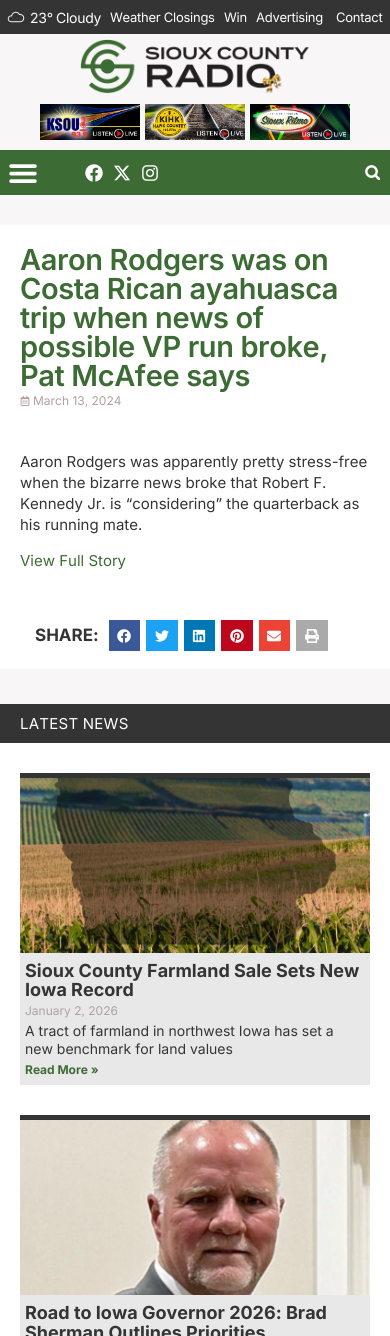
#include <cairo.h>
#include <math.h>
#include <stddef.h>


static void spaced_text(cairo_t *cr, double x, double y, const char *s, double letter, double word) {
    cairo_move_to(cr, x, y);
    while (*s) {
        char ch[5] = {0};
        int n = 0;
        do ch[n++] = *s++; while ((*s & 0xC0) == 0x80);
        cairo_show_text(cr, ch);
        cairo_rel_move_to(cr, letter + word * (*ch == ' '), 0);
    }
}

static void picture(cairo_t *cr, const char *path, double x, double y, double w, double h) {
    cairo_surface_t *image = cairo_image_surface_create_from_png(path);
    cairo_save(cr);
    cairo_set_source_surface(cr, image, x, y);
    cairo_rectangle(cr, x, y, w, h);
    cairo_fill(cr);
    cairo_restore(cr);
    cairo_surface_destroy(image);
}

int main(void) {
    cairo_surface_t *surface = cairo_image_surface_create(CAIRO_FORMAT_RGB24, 390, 1336);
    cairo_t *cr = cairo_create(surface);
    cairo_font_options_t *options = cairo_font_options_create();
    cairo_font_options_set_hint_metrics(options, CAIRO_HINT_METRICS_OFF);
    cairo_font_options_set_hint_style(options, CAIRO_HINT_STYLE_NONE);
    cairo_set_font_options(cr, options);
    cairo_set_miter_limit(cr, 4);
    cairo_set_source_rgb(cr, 0.969, 0.961, 0.961);
    cairo_paint(cr);
    cairo_set_source_rgb(cr, 0.204, 0.204, 0.204);
    cairo_rectangle(cr, 0, 0, 390, 34);
    cairo_fill(cr);
    picture(cr, "img1.png", 7, 11, 18, 12);
    cairo_select_font_face(cr, "Inter", CAIRO_FONT_SLANT_NORMAL, CAIRO_FONT_WEIGHT_NORMAL);
    cairo_set_font_size(cr, 14);
    cairo_set_source_rgb(cr, 1, 1, 1);
    spaced_text(cr, 30, 23, "23°", -0.25, 0);
    spaced_text(cr, 56, 23, "Cloudy", -0.25, 0);
    cairo_set_font_size(cr, 13);
    spaced_text(cr, 110, 22, "Weather Closings", -0.25, 0);
    spaced_text(cr, 224, 22, "Win", -0.25, 0);
    spaced_text(cr, 256, 22, "Advertising", -0.25, 0);
    spaced_text(cr, 336, 22, "Contact", -0.25, 0);
    picture(cr, "img2.png", 80, 39, 229, 55);
    picture(cr, "img3.png", 40, 104, 100, 36);
    picture(cr, "img4.png", 145, 104, 100, 36);
    picture(cr, "img5.png", 250, 104, 100, 36);
    cairo_set_source_rgb(cr, 0.235, 0.424, 0.204);
    cairo_rectangle(cr, 0, 150, 390, 45);
    cairo_fill(cr);
    picture(cr, "img6.png", 9, 164, 28, 19);
    picture(cr, "img7.png", 85, 164, 18, 18);
    picture(cr, "img8.png", 114, 165, 16, 16);
    picture(cr, "img9.png", 142, 165, 16, 16);
    picture(cr, "img10.png", 365, 165, 15, 15);
    cairo_set_source_rgb(cr, 1, 1, 1);
    cairo_rectangle(cr, 0, 225, 390, 444);
    cairo_fill(cr);
    cairo_select_font_face(cr, "Inter SemiBold", CAIRO_FONT_SLANT_NORMAL, CAIRO_FONT_WEIGHT_NORMAL);
    cairo_set_font_size(cr, 29);
    cairo_set_source_rgb(cr, 0.235, 0.424, 0.204);
    spaced_text(cr, 20, 270, "Aaron Rodgers was on", -0.4, 0);
    spaced_text(cr, 20, 299, "Costa Rican ayahuasca", -0.4, 0);
    spaced_text(cr, 20, 328, "trip when news of", -0.4, 0);
    spaced_text(cr, 20, 357, "possible VP run broke,", -0.4, 0);
    spaced_text(cr, 20, 386, "Pat McAfee says", -0.4, 0);
    picture(cr, "img11.png", 20, 396, 10, 10);
    cairo_select_font_face(cr, "Inter", CAIRO_FONT_SLANT_NORMAL, CAIRO_FONT_WEIGHT_NORMAL);
    cairo_set_font_size(cr, 12);
    cairo_set_source_rgb(cr, 0.694, 0.627, 0.627);
    cairo_move_to(cr, 33, 405);
    cairo_show_text(cr, "March 13, 2024");
    cairo_set_font_size(cr, 15);
    cairo_set_source_rgb(cr, 0.204, 0.204, 0.204);
    cairo_move_to(cr, 20, 467);
    cairo_show_text(cr, "Aaron Rodgers was apparently pretty stress-free");
    cairo_move_to(cr, 20, 488);
    cairo_show_text(cr, "when the bizarre news broke that Robert F.");
    cairo_move_to(cr, 20, 509);
    cairo_show_text(cr, "Kennedy Jr. is “considering” the quarterback as");
    cairo_move_to(cr, 20, 530);
    cairo_show_text(cr, "his running mate.");
    cairo_set_source_rgb(cr, 0.235, 0.424, 0.204);
    cairo_move_to(cr, 20, 566);
    cairo_show_text(cr, "View Full Story");
    cairo_select_font_face(cr, "Inter", CAIRO_FONT_SLANT_NORMAL, CAIRO_FONT_WEIGHT_BOLD);
    cairo_set_font_size(cr, 17);
    cairo_set_source_rgb(cr, 0.204, 0.204, 0.204);
    cairo_move_to(cr, 35, 641);
    cairo_show_text(cr, "SHARE:");
    cairo_set_source_rgb(cr, 0.231, 0.349, 0.596);
    cairo_rectangle(cr, 109, 620, 31, 31);
    cairo_fill(cr);
    picture(cr, "img12.png", 117, 629, 14, 14);
    cairo_set_source_rgb(cr, 0.114, 0.631, 0.949);
    cairo_rectangle(cr, 146, 620, 32, 31);
    cairo_fill(cr);
    picture(cr, "img13.png", 155, 630, 14, 12);
    cairo_set_source_rgb(cr, 0, 0.467, 0.71);
    cairo_rectangle(cr, 184, 620, 31, 31);
    cairo_fill(cr);
    picture(cr, "img14.png", 192, 629, 14, 14);
    cairo_set_source_rgb(cr, 0.741, 0.031, 0.11);
    cairo_rectangle(cr, 221, 620, 32, 31);
    cairo_fill(cr);
    picture(cr, "img15.png", 230, 629, 14, 14);
    cairo_set_source_rgb(cr, 0.918, 0.263, 0.208);
    cairo_rectangle(cr, 259, 620, 31, 31);
    cairo_fill(cr);
    picture(cr, "img16.png", 267, 630, 14, 12);
    cairo_set_source_rgb(cr, 0.667, 0.667, 0.667);
    cairo_rectangle(cr, 296, 620, 32, 31);
    cairo_fill(cr);
    picture(cr, "img17.png", 305, 629, 14, 14);
    cairo_set_source_rgb(cr, 1, 1, 1);
    cairo_rectangle(cr, 0, 743, 390, 593);
    cairo_fill(cr);
    cairo_set_source_rgb(cr, 0.204, 0.204, 0.204);
    cairo_rectangle(cr, 0, 704, 390, 39);
    cairo_fill(cr);
    cairo_select_font_face(cr, "Inter", CAIRO_FONT_SLANT_NORMAL, CAIRO_FONT_WEIGHT_NORMAL);
    cairo_set_font_size(cr, 15);
    cairo_set_source_rgb(cr, 1, 1, 1);
    spaced_text(cr, 20, 729, "LATEST NEWS", 0.25, 0);
    cairo_set_source_rgb(cr, 0.91, 0.91, 0.91);
    cairo_rectangle(cr, 20, 953, 350, 132);
    cairo_fill(cr);
    cairo_set_source_rgb(cr, 0.204, 0.204, 0.204);
    cairo_rectangle(cr, 20, 773, 350, 5);
    cairo_fill(cr);
    picture(cr, "img18.png", 20, 778, 350, 175);
    cairo_select_font_face(cr, "Inter", CAIRO_FONT_SLANT_NORMAL, CAIRO_FONT_WEIGHT_BOLD);
    cairo_set_font_size(cr, 18);
    cairo_move_to(cr, 25, 977);
    cairo_show_text(cr, "Sioux County Farmland Sale Sets New");
    cairo_move_to(cr, 25, 996);
    cairo_show_text(cr, "Iowa Record");
    cairo_select_font_face(cr, "Inter", CAIRO_FONT_SLANT_NORMAL, CAIRO_FONT_WEIGHT_NORMAL);
    cairo_set_font_size(cr, 12);
    cairo_set_source_rgb(cr, 0.694, 0.627, 0.627);
    cairo_move_to(cr, 25, 1015);
    cairo_show_text(cr, "January 2, 2026");
    cairo_set_font_size(cr, 14);
    cairo_set_source_rgb(cr, 0.204, 0.204, 0.204);
    cairo_move_to(cr, 25, 1036);
    cairo_show_text(cr, "A tract of farmland in northwest Iowa has set a");
    cairo_move_to(cr, 25, 1054);
    cairo_show_text(cr, "new benchmark for land values");
    cairo_select_font_face(cr, "Inter", CAIRO_FONT_SLANT_NORMAL, CAIRO_FONT_WEIGHT_BOLD);
    cairo_set_font_size(cr, 12);
    cairo_set_source_rgb(cr, 0.235, 0.424, 0.204);
    cairo_move_to(cr, 25, 1074);
    cairo_show_text(cr, "Read More »");
    cairo_set_source_rgb(cr, 0.91, 0.91, 0.91);
    cairo_rectangle(cr, 20, 1295, 350, 41);
    cairo_fill(cr);
    cairo_set_source_rgb(cr, 0.204, 0.204, 0.204);
    cairo_rectangle(cr, 20, 1115, 350, 5);
    cairo_fill(cr);
    picture(cr, "img19.png", 20, 1120, 350, 175);
    cairo_set_font_size(cr, 18);
    cairo_move_to(cr, 25, 1319);
    cairo_show_text(cr, "Road to Iowa Governor 2026: Brad");
    cairo_move_to(cr, 25, 1339);
    cairo_show_text(cr, "Sherman Outlines Priorities");
    cairo_surface_write_to_png(surface, "page.png");
    cairo_font_options_destroy(options);
    cairo_destroy(cr);
    cairo_surface_destroy(surface);
    return 0;
}
